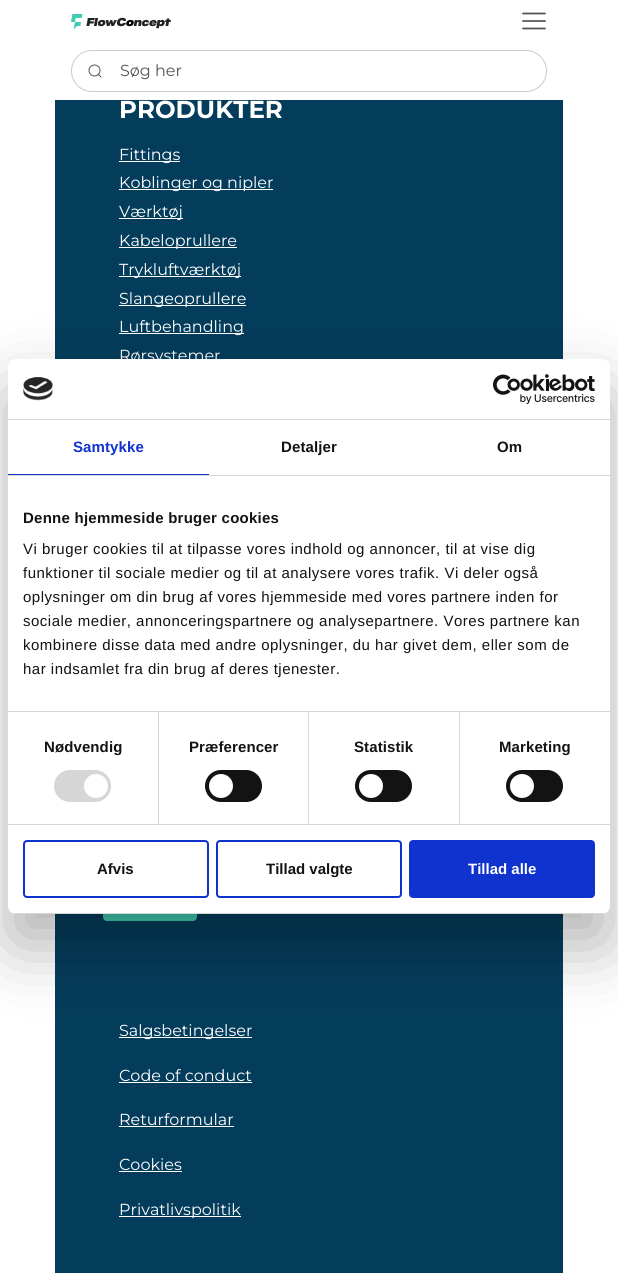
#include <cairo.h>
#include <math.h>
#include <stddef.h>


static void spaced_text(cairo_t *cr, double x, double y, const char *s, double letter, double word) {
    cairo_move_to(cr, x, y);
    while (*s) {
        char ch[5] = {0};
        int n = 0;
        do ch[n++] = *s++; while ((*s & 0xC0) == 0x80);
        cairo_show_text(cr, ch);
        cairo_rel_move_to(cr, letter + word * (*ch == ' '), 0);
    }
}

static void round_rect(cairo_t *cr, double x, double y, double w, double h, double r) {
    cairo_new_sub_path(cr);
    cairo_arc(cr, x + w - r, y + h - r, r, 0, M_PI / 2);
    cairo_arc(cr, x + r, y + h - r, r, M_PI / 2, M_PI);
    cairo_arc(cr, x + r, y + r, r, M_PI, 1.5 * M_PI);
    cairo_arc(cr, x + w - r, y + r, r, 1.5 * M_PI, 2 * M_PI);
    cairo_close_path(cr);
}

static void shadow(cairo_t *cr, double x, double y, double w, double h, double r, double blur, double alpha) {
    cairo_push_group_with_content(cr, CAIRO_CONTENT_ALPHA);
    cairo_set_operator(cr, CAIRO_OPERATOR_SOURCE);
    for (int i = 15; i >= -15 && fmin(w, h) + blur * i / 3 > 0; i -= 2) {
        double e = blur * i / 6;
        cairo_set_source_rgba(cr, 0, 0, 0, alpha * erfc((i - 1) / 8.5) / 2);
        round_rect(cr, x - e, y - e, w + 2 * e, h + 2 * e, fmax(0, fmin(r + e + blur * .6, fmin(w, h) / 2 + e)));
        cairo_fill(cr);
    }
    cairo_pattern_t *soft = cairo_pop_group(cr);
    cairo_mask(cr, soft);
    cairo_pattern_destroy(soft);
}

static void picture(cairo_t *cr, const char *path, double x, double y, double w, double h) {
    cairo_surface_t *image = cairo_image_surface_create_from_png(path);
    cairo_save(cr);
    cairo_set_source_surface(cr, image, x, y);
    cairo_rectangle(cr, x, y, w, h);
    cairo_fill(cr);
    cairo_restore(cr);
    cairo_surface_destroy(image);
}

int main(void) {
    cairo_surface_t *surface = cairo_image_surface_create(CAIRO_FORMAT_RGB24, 618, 1273);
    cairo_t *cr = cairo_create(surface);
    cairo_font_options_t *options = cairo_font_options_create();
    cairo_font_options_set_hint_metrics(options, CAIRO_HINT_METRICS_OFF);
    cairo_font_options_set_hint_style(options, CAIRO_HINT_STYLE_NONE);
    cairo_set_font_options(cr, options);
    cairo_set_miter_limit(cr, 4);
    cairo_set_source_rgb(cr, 1, 1, 1);
    cairo_paint(cr);
    picture(cr, "img1.png", 71, 14, 100, 15);
    cairo_new_path(cr);
    cairo_move_to(cr, 523, 21);
    cairo_line_to(cr, 545, 21);
    cairo_move_to(cr, 523, 13.5);
    cairo_line_to(cr, 545, 13.5);
    cairo_move_to(cr, 523, 28.5);
    cairo_line_to(cr, 545, 28.5);
    cairo_set_source_rgb(cr, 0.325, 0.337, 0.353);
    cairo_set_line_width(cr, 1.8);
    cairo_set_line_cap(cr, CAIRO_LINE_CAP_ROUND);
    cairo_set_line_join(cr, CAIRO_LINE_JOIN_ROUND);
    cairo_stroke(cr);
    round_rect(cr, 71.5, 50.5, 475, 41, 20.5);
    cairo_set_source_rgb(cr, 0.796, 0.8, 0.808);
    cairo_set_line_width(cr, 1);
    cairo_set_line_cap(cr, CAIRO_LINE_CAP_BUTT);
    cairo_set_line_join(cr, CAIRO_LINE_JOIN_MITER);
    cairo_stroke(cr);
    cairo_arc(cr, 94.5, 70.5, 5.5, 0, 2 * M_PI);
    cairo_set_source_rgb(cr, 0.325, 0.337, 0.353);
    cairo_stroke(cr);
    cairo_new_path(cr);
    cairo_move_to(cr, 101, 77);
    cairo_line_to(cr, 98, 74);
    cairo_set_line_cap(cr, CAIRO_LINE_CAP_ROUND);
    cairo_set_line_join(cr, CAIRO_LINE_JOIN_ROUND);
    cairo_stroke(cr);
    cairo_select_font_face(cr, "Montserrat", CAIRO_FONT_SLANT_NORMAL, CAIRO_FONT_WEIGHT_NORMAL);
    cairo_set_font_size(cr, 16);
    cairo_move_to(cr, 120, 76);
    cairo_show_text(cr, "Søg her");
    cairo_set_source_rgb(cr, 0.016, 0.235, 0.357);
    cairo_rectangle(cr, 55, 100, 508, 259);
    cairo_fill(cr);
    cairo_select_font_face(cr, "Montserrat", CAIRO_FONT_SLANT_NORMAL, CAIRO_FONT_WEIGHT_BOLD);
    cairo_set_font_size(cr, 24.5);
    cairo_set_source_rgb(cr, 1, 1, 1);
    cairo_move_to(cr, 119, 118);
    cairo_show_text(cr, "PRODUKTER");
    cairo_rectangle(cr, 119, 161, 61, 1);
    cairo_fill(cr);
    cairo_select_font_face(cr, "Montserrat", CAIRO_FONT_SLANT_NORMAL, CAIRO_FONT_WEIGHT_NORMAL);
    cairo_set_font_size(cr, 16);
    cairo_move_to(cr, 119, 160);
    cairo_show_text(cr, "Fittings");
    cairo_rectangle(cr, 119, 189, 154, 1);
    cairo_fill(cr);
    cairo_move_to(cr, 119, 188);
    cairo_show_text(cr, "Koblinger og nipler");
    cairo_rectangle(cr, 119, 218, 64, 1);
    cairo_fill(cr);
    cairo_move_to(cr, 119, 217);
    cairo_show_text(cr, "Værktøj");
    cairo_rectangle(cr, 119, 247, 118, 1);
    cairo_fill(cr);
    cairo_move_to(cr, 119, 246);
    cairo_show_text(cr, "Kabeloprullere");
    cairo_rectangle(cr, 119, 276, 122, 1);
    cairo_fill(cr);
    cairo_move_to(cr, 119, 275);
    cairo_show_text(cr, "Trykluftværktøj");
    cairo_rectangle(cr, 119, 305, 127, 1);
    cairo_fill(cr);
    cairo_move_to(cr, 119, 304);
    cairo_show_text(cr, "Slangeoprullere");
    cairo_rectangle(cr, 119, 333, 125, 1);
    cairo_fill(cr);
    cairo_move_to(cr, 119, 332);
    cairo_show_text(cr, "Luftbehandling");
    cairo_move_to(cr, 119, 361);
    cairo_show_text(cr, "Rørsystemer");
    cairo_set_source_rgb(cr, 0.016, 0.235, 0.357);
    cairo_rectangle(cr, 55, 914, 508, 359);
    cairo_fill(cr);
    cairo_set_source_rgb(cr, 0.251, 0.8, 0.694);
    round_rect(cr, 103, 883, 94, 38, 4);
    cairo_fill(cr);
    cairo_set_source_rgb(cr, 1, 1, 1);
    cairo_rectangle(cr, 119, 1037, 133, 1);
    cairo_fill(cr);
    cairo_move_to(cr, 119, 1036);
    cairo_show_text(cr, "Salgsbetingelser");
    cairo_move_to(cr, 119, 1081);
    cairo_show_text(cr, "Code of conduct");
    cairo_rectangle(cr, 119, 1082, 133, 1);
    cairo_fill(cr);
    cairo_move_to(cr, 119, 1125);
    cairo_show_text(cr, "Returformular");
    cairo_rectangle(cr, 119, 1126, 115, 1);
    cairo_fill(cr);
    cairo_move_to(cr, 119, 1170);
    cairo_show_text(cr, "Cookies");
    cairo_rectangle(cr, 119, 1171, 63, 1);
    cairo_fill(cr);
    cairo_rectangle(cr, 119, 1216, 122, 1);
    cairo_fill(cr);
    cairo_move_to(cr, 119, 1215);
    cairo_show_text(cr, "Privatlivspolitik");
    cairo_set_source_rgb(cr, 0, 0, 0);
    shadow(cr, 8, 391, 602, 555, 8, 34, 0.3);
    cairo_set_source_rgb(cr, 1, 1, 1);
    round_rect(cr, 8, 359, 602, 555, 8);
    cairo_fill(cr);
    cairo_set_source_rgb(cr, 0.839, 0.839, 0.839);
    cairo_rectangle(cr, 8, 419, 602, 1);
    cairo_fill(cr);
    picture(cr, "img2.png", 23, 377, 30, 24);
    picture(cr, "img3.png", 493, 374, 102, 30);
    cairo_rectangle(cr, 8, 475, 602, 1);
    cairo_fill(cr);
    cairo_set_source_rgb(cr, 0.063, 0.196, 0.812);
    cairo_rectangle(cr, 8, 474, 201, 1);
    cairo_fill(cr);
    cairo_select_font_face(cr, "Liberation Sans", CAIRO_FONT_SLANT_NORMAL, CAIRO_FONT_WEIGHT_BOLD);
    cairo_set_font_size(cr, 15);
    spaced_text(cr, 73, 452, "Samtykke", 0.1, 0);
    cairo_set_source_rgb(cr, 0.078, 0.078, 0.078);
    spaced_text(cr, 281, 452, "Detaljer", 0.1, 0);
    spaced_text(cr, 497, 452, "Om", 0.1, 0);
    cairo_set_source_rgb(cr, 0.839, 0.839, 0.839);
    cairo_rectangle(cr, 8, 711, 602, 1);
    cairo_fill(cr);
    cairo_set_source_rgb(cr, 0.078, 0.078, 0.078);
    spaced_text(cr, 23, 523, "Denne hjemmeside bruger cookies", 0.25, 0);
    cairo_select_font_face(cr, "Liberation Sans", CAIRO_FONT_SLANT_NORMAL, CAIRO_FONT_WEIGHT_NORMAL);
    spaced_text(cr, 23, 554, "Vi bruger cookies til at tilpasse vores indhold og annoncer, til at vise dig", 0.5, 0);
    spaced_text(cr, 23, 578, "funktioner til sociale medier og til at analysere vores trafik. Vi deler også", 0.5, 0);
    spaced_text(cr, 23, 602, "oplysninger om din brug af vores hjemmeside med vores partnere inden for", 0.5, 0);
    spaced_text(cr, 23, 626, "sociale medier, annonceringspartnere og analysepartnere. Vores partnere kan", 0.5, 0);
    spaced_text(cr, 23, 650, "kombinere disse data med andre oplysninger, du har givet dem, eller som de", 0.5, 0);
    spaced_text(cr, 23, 674, "har indsamlet fra din brug af deres tjenester.", 0.5, 0);
    cairo_set_source_rgb(cr, 0.839, 0.839, 0.839);
    cairo_rectangle(cr, 8, 824, 602, 1);
    cairo_fill(cr);
    cairo_rectangle(cr, 158, 712, 1, 112);
    cairo_fill(cr);
    cairo_select_font_face(cr, "Liberation Sans", CAIRO_FONT_SLANT_NORMAL, CAIRO_FONT_WEIGHT_BOLD);
    cairo_set_source_rgb(cr, 0.078, 0.078, 0.078);
    spaced_text(cr, 44, 752, "Nødvendig", 0.1, 0);
    cairo_set_source_rgb(cr, 0.839, 0.839, 0.839);
    round_rect(cr, 54, 770, 57, 32, 16);
    cairo_fill(cr);
    cairo_set_source_rgb(cr, 1, 1, 1);
    cairo_arc(cr, 96, 786, 12, 0, 2 * M_PI);
    cairo_fill(cr);
    cairo_set_source_rgb(cr, 0.839, 0.839, 0.839);
    cairo_rectangle(cr, 308, 712, 1, 112);
    cairo_fill(cr);
    cairo_set_source_rgb(cr, 0.078, 0.078, 0.078);
    spaced_text(cr, 189, 752, "Præferencer", 0.1, 0);
    round_rect(cr, 205, 770, 57, 32, 16);
    cairo_fill(cr);
    cairo_set_source_rgb(cr, 1, 1, 1);
    cairo_arc(cr, 221, 786, 12, 0, 2 * M_PI);
    cairo_fill(cr);
    cairo_set_source_rgb(cr, 0.839, 0.839, 0.839);
    cairo_rectangle(cr, 459, 712, 1, 112);
    cairo_fill(cr);
    cairo_set_source_rgb(cr, 0.078, 0.078, 0.078);
    spaced_text(cr, 354, 752, "Statistik", 0.1, 0);
    round_rect(cr, 355, 770, 57, 32, 16);
    cairo_fill(cr);
    cairo_set_source_rgb(cr, 1, 1, 1);
    cairo_arc(cr, 371, 786, 12, 0, 2 * M_PI);
    cairo_fill(cr);
    cairo_set_source_rgb(cr, 0.078, 0.078, 0.078);
    spaced_text(cr, 499, 752, "Marketing", 0.1, 0);
    round_rect(cr, 506, 770, 57, 32, 16);
    cairo_fill(cr);
    cairo_set_source_rgb(cr, 1, 1, 1);
    cairo_arc(cr, 522, 786, 12, 0, 2 * M_PI);
    cairo_fill(cr);
    cairo_save(cr);
    round_rect(cr, 8, 359, 602, 555, 8);
    cairo_clip(cr);
    cairo_set_source_rgb(cr, 0.839, 0.839, 0.839);
    cairo_rectangle(cr, 8, 913, 602, 1);
    cairo_fill(cr);
    cairo_restore(cr);
    round_rect(cr, 24, 841, 184, 56, 3);
    cairo_set_source_rgb(cr, 0.063, 0.196, 0.812);
    cairo_set_line_width(cr, 2);
    cairo_set_line_cap(cr, CAIRO_LINE_CAP_BUTT);
    cairo_set_line_join(cr, CAIRO_LINE_JOIN_MITER);
    cairo_stroke(cr);
    cairo_set_source_rgb(cr, 0.078, 0.078, 0.078);
    cairo_move_to(cr, 97, 874);
    cairo_show_text(cr, "Afvis");
    round_rect(cr, 217, 841, 184, 56, 3);
    cairo_set_source_rgb(cr, 0.063, 0.196, 0.812);
    cairo_stroke(cr);
    cairo_set_source_rgb(cr, 0.078, 0.078, 0.078);
    cairo_move_to(cr, 266, 874);
    cairo_show_text(cr, "Tillad valgte");
    cairo_set_source_rgb(cr, 0.063, 0.196, 0.812);
    round_rect(cr, 410, 841, 184, 56, 3);
    cairo_fill_preserve(cr);
    cairo_stroke(cr);
    cairo_set_source_rgb(cr, 1, 1, 1);
    cairo_move_to(cr, 468, 874);
    cairo_show_text(cr, "Tillad alle");
    cairo_surface_write_to_png(surface, "page.png");
    cairo_font_options_destroy(options);
    cairo_destroy(cr);
    cairo_surface_destroy(surface);
    return 0;
}
